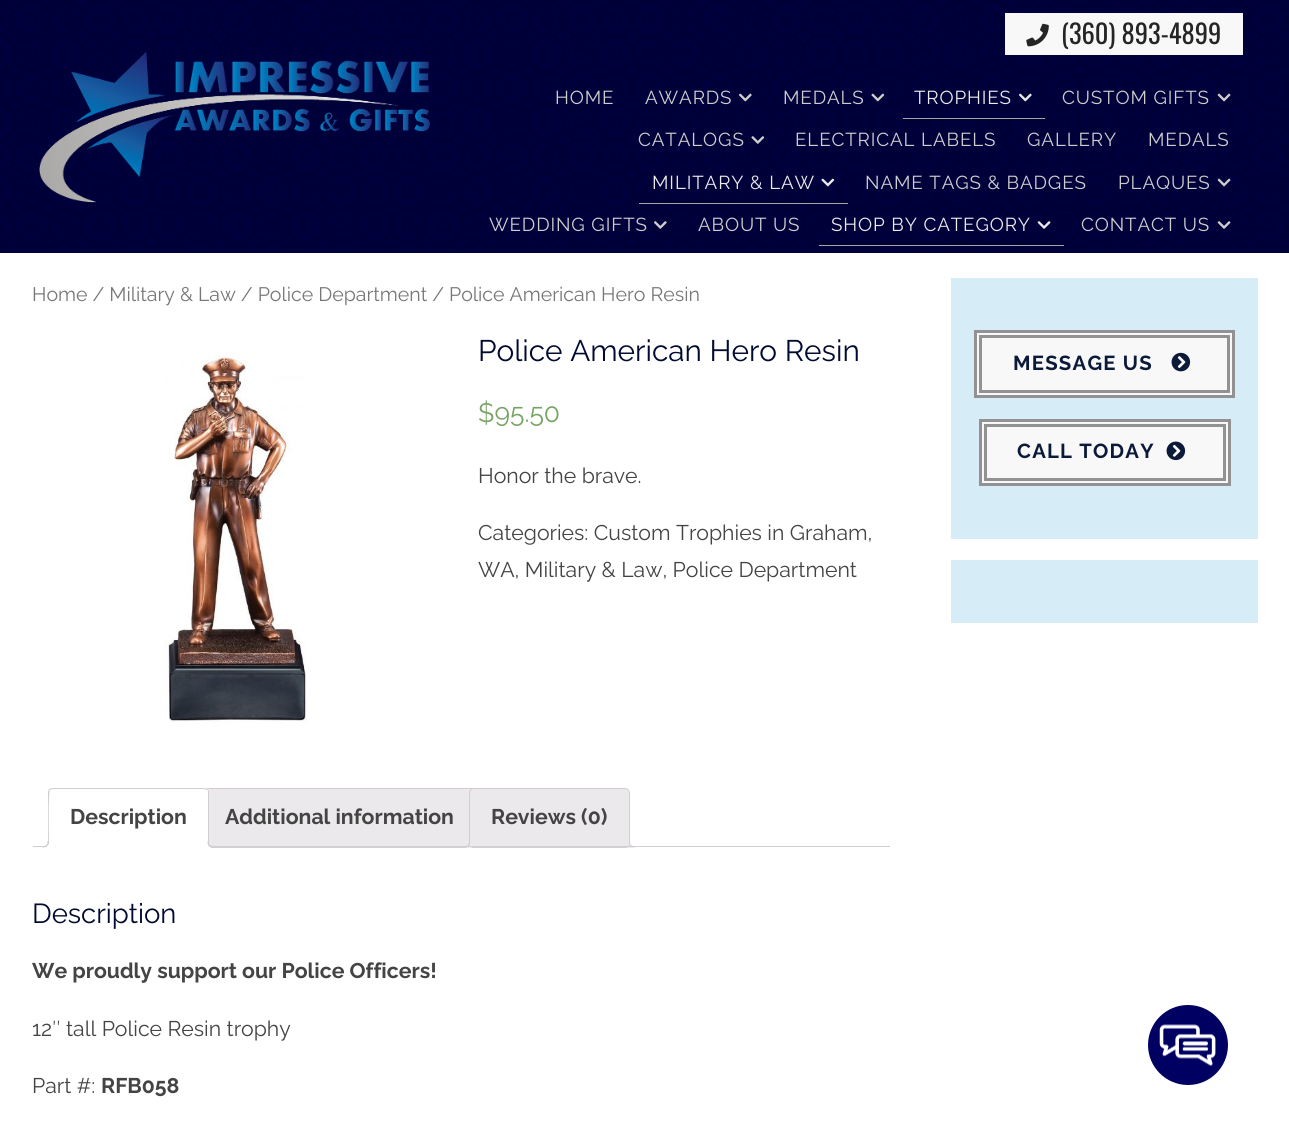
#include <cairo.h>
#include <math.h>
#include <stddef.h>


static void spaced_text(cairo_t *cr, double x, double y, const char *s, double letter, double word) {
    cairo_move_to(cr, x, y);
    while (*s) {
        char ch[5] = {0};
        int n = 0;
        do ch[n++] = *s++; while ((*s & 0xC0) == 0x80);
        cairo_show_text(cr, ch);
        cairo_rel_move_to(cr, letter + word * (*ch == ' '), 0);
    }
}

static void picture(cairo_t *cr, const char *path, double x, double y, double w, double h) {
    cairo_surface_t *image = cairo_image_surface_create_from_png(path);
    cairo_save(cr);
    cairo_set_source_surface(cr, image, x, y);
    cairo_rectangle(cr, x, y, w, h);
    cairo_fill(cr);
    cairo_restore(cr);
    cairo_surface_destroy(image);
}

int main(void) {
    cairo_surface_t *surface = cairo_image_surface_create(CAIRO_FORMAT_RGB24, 1289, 1134);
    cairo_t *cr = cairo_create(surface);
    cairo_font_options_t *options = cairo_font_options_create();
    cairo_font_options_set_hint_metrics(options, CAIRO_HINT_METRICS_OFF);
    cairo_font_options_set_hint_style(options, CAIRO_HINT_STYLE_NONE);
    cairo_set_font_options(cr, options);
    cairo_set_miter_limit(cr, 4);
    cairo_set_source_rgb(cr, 1, 1, 1);
    cairo_paint(cr);
    cairo_set_source_rgb(cr, 0, 0, 0.239);
    cairo_rectangle(cr, 0, 0, 1289, 253);
    cairo_fill(cr);
    picture(cr, "img1.png", 0, 0, 1289, 252);
    picture(cr, "img2.png", 39, 51, 391, 152);
    cairo_set_source_rgb(cr, 0.969, 0.969, 0.969);
    cairo_rectangle(cr, 1005, 13, 238, 42);
    cairo_fill(cr);
    picture(cr, "img3.png", 1026, 23, 23, 24);
    cairo_select_font_face(cr, "Oswald", CAIRO_FONT_SLANT_NORMAL, CAIRO_FONT_WEIGHT_NORMAL);
    cairo_set_font_size(cr, 26.5);
    cairo_set_source_rgb(cr, 0.145, 0.145, 0.145);
    cairo_move_to(cr, 1061, 44);
    cairo_show_text(cr, "(360) 893-4899");
    cairo_select_font_face(cr, "Raleway", CAIRO_FONT_SLANT_NORMAL, CAIRO_FONT_WEIGHT_NORMAL);
    cairo_set_font_size(cr, 18.75);
    cairo_set_source_rgb(cr, 0.808, 0.808, 0.808);
    spaced_text(cr, 555, 104, "HOME", 0.9, 0);
    spaced_text(cr, 645, 104, "AWARDS", 0.9, 0);
    picture(cr, "img4.png", 739, 93, 13, 9);
    spaced_text(cr, 783, 104, "MEDALS", 0.9, 0);
    picture(cr, "img5.png", 871, 93, 14, 9);
    cairo_set_source_rgb(cr, 0.918, 0.918, 0.918);
    spaced_text(cr, 914, 104, "TROPHIES", 0.9, 0);
    picture(cr, "img6.png", 1019, 93, 13, 9);
    cairo_set_source_rgb(cr, 0.659, 0.651, 0.624);
    cairo_rectangle(cr, 903, 118, 142, 1);
    cairo_fill(cr);
    cairo_set_source_rgb(cr, 0.808, 0.808, 0.808);
    spaced_text(cr, 1062, 104, "CUSTOM GIFTS", 0.9, 0);
    picture(cr, "img7.png", 1217, 93, 14, 9);
    spaced_text(cr, 638, 146, "CATALOGS", 0.9, 0);
    picture(cr, "img8.png", 751, 136, 14, 8);
    spaced_text(cr, 795, 146, "ELECTRICAL LABELS", 0.9, 0);
    spaced_text(cr, 1027, 146, "GALLERY", 0.9, 0);
    spaced_text(cr, 1148, 146, "MEDALS", 0.9, 0);
    cairo_set_source_rgb(cr, 0.918, 0.918, 0.918);
    spaced_text(cr, 652, 189, "MILITARY & LAW", 0.9, 0);
    picture(cr, "img9.png", 821, 178, 14, 9);
    cairo_set_source_rgb(cr, 0.659, 0.651, 0.624);
    cairo_rectangle(cr, 639, 203, 209, 1);
    cairo_fill(cr);
    cairo_set_source_rgb(cr, 0.808, 0.808, 0.808);
    spaced_text(cr, 865, 189, "NAME TAGS & BADGES", 0.9, 0);
    spaced_text(cr, 1118, 189, "PLAQUES", 0.9, 0);
    picture(cr, "img10.png", 1217, 178, 14, 9);
    spaced_text(cr, 489, 231, "WEDDING GIFTS", 0.9, 0);
    picture(cr, "img11.png", 654, 221, 13, 8);
    spaced_text(cr, 698, 231, "ABOUT US", 0.9, 0);
    cairo_set_source_rgb(cr, 0.918, 0.918, 0.918);
    spaced_text(cr, 831, 231, "SHOP BY CATEGORY", 0.9, 0);
    picture(cr, "img12.png", 1037, 221, 14, 8);
    cairo_set_source_rgb(cr, 0.659, 0.651, 0.624);
    cairo_rectangle(cr, 819, 245, 245, 1);
    cairo_fill(cr);
    cairo_set_source_rgb(cr, 0.808, 0.808, 0.808);
    spaced_text(cr, 1081, 231, "CONTACT US", 0.9, 0);
    picture(cr, "img13.png", 1217, 221, 14, 8);
    cairo_set_font_size(cr, 19.55);
    cairo_set_source_rgb(cr, 0.467, 0.467, 0.467);
    cairo_move_to(cr, 32, 301);
    cairo_show_text(cr, "Home / Military & Law / Police Department / Police American Hero Resin");
    picture(cr, "img14.png", 164, 355, 143, 368);
    cairo_set_font_size(cr, 29.75);
    cairo_set_source_rgb(cr, 0.004, 0.043, 0.192);
    cairo_move_to(cr, 478, 361);
    cairo_show_text(cr, "Police American Hero Resin");
    cairo_set_font_size(cr, 26.5);
    cairo_set_source_rgb(cr, 0.467, 0.643, 0.392);
    cairo_move_to(cr, 478, 422);
    cairo_show_text(cr, "$95.50");
    cairo_set_font_size(cr, 21.25);
    cairo_set_source_rgb(cr, 0.267, 0.267, 0.267);
    cairo_move_to(cr, 478, 483);
    cairo_show_text(cr, "Honor the brave.");
    cairo_move_to(cr, 478, 540);
    cairo_show_text(cr, "Categories: Custom Trophies in Graham,");
    cairo_move_to(cr, 478, 577);
    cairo_show_text(cr, "WA, Military & Law, Police Department");
    cairo_set_source_rgb(cr, 0.922, 0.914, 0.922);
    cairo_new_path(cr);
    cairo_move_to(cr, 208, 788.5);
    cairo_line_to(cr, 471, 788.5);
    cairo_curve_to(cr, 473.5, 788.5, 475.5, 790.5, 475.5, 793);
    cairo_line_to(cr, 475.5, 847.5);
    cairo_line_to(cr, 203.5, 847.5);
    cairo_line_to(cr, 203.5, 793);
    cairo_curve_to(cr, 203.5, 790.5, 205.5, 788.5, 208, 788.5);
    cairo_close_path(cr);
    cairo_fill_preserve(cr);
    cairo_set_source_rgb(cr, 0.827, 0.808, 0.824);
    cairo_set_line_width(cr, 1);
    cairo_stroke(cr);
    cairo_set_source_rgb(cr, 0.922, 0.914, 0.922);
    cairo_new_path(cr);
    cairo_move_to(cr, 474, 788.5);
    cairo_line_to(cr, 625, 788.5);
    cairo_curve_to(cr, 627.5, 788.5, 629.5, 790.5, 629.5, 793);
    cairo_line_to(cr, 629.5, 847.5);
    cairo_line_to(cr, 469.5, 847.5);
    cairo_line_to(cr, 469.5, 793);
    cairo_curve_to(cr, 469.5, 790.5, 471.5, 788.5, 474, 788.5);
    cairo_close_path(cr);
    cairo_fill_preserve(cr);
    cairo_set_source_rgb(cr, 0.827, 0.808, 0.824);
    cairo_stroke(cr);
    cairo_save(cr);
    cairo_rectangle(cr, 33, 788, 857, 60);
    cairo_clip(cr);
    cairo_set_source_rgb(cr, 0.922, 0.914, 0.922);
    cairo_new_path(cr);
    cairo_move_to(cr, 466, 847.5);
    cairo_line_to(cr, 466, 850);
    cairo_curve_to(cr, 470.5, 850, 473, 849, 473, 844);
    cairo_line_to(cr, 470, 844);
    cairo_curve_to(cr, 469, 845.5, 468, 847, 466, 847.5);
    cairo_close_path(cr);
    cairo_fill(cr);
    cairo_restore(cr);
    cairo_set_fill_rule(cr, CAIRO_FILL_RULE_EVEN_ODD);
    cairo_new_path(cr);
    cairo_move_to(cr, 464, 841);
    cairo_line_to(cr, 470, 841);
    cairo_curve_to(cr, 470, 845.5, 468, 847.5, 464, 847.5);
    cairo_close_path(cr);
    cairo_move_to(cr, 464, 841);
    cairo_line_to(cr, 469, 841);
    cairo_curve_to(cr, 469, 845, 467.5, 846, 464, 846);
    cairo_close_path(cr);
    cairo_fill(cr);
    cairo_save(cr);
    cairo_set_fill_rule(cr, CAIRO_FILL_RULE_WINDING);
    cairo_rectangle(cr, 33, 788, 857, 60);
    cairo_clip(cr);
    cairo_set_source_rgb(cr, 0.922, 0.914, 0.922);
    cairo_new_path(cr);
    cairo_move_to(cr, 626, 844);
    cairo_curve_to(cr, 626, 849, 628.5, 850, 633, 850);
    cairo_line_to(cr, 633, 847.5);
    cairo_curve_to(cr, 631, 847, 629.5, 846, 629, 844);
    cairo_close_path(cr);
    cairo_fill(cr);
    cairo_restore(cr);
    cairo_new_path(cr);
    cairo_move_to(cr, 629, 841);
    cairo_line_to(cr, 635, 841);
    cairo_line_to(cr, 635, 847.5);
    cairo_curve_to(cr, 632, 847.5, 629, 846, 629, 842.5);
    cairo_close_path(cr);
    cairo_move_to(cr, 630, 841);
    cairo_line_to(cr, 635, 841);
    cairo_line_to(cr, 635, 846);
    cairo_curve_to(cr, 632.5, 846, 630, 845.5, 630, 842.5);
    cairo_close_path(cr);
    cairo_fill(cr);
    cairo_rectangle(cr, 33, 846, 857, 1);
    cairo_fill(cr);
    cairo_set_source_rgb(cr, 1, 1, 1);
    cairo_new_path(cr);
    cairo_move_to(cr, 53, 788);
    cairo_line_to(cr, 204, 788);
    cairo_curve_to(cr, 207, 788, 209, 790, 209, 793);
    cairo_line_to(cr, 209, 848);
    cairo_line_to(cr, 48, 848);
    cairo_line_to(cr, 48, 793);
    cairo_curve_to(cr, 48, 790, 50, 788, 53, 788);
    cairo_close_path(cr);
    cairo_fill(cr);
    cairo_set_source_rgb(cr, 0.827, 0.808, 0.824);
    cairo_set_fill_rule(cr, CAIRO_FILL_RULE_WINDING);
    cairo_new_path(cr);
    cairo_move_to(cr, 52, 788);
    cairo_line_to(cr, 49, 789);
    cairo_line_to(cr, 50, 790);
    cairo_line_to(cr, 52, 789);
    cairo_line_to(cr, 204, 789);
    cairo_line_to(cr, 207, 790);
    cairo_line_to(cr, 207, 789);
    cairo_line_to(cr, 204, 788);
    cairo_close_path(cr);
    cairo_fill(cr);
    cairo_new_path(cr);
    cairo_move_to(cr, 207, 789);
    cairo_line_to(cr, 209, 791);
    cairo_line_to(cr, 209, 848);
    cairo_line_to(cr, 207, 846);
    cairo_line_to(cr, 208, 846);
    cairo_line_to(cr, 208, 791);
    cairo_line_to(cr, 207, 790);
    cairo_close_path(cr);
    cairo_fill(cr);
    cairo_set_source_rgb(cr, 1, 1, 1);
    cairo_new_path(cr);
    cairo_move_to(cr, 209, 848);
    cairo_line_to(cr, 48, 848);
    cairo_line_to(cr, 49, 846);
    cairo_line_to(cr, 207, 846);
    cairo_close_path(cr);
    cairo_fill(cr);
    cairo_set_source_rgb(cr, 0.827, 0.808, 0.824);
    cairo_new_path(cr);
    cairo_move_to(cr, 49, 789);
    cairo_line_to(cr, 48, 792);
    cairo_line_to(cr, 48, 847);
    cairo_line_to(cr, 49, 846);
    cairo_curve_to(cr, 49, 840, 48, 792, 50, 790);
    cairo_close_path(cr);
    cairo_fill(cr);
    cairo_select_font_face(cr, "Raleway", CAIRO_FONT_SLANT_NORMAL, CAIRO_FONT_WEIGHT_BOLD);
    cairo_set_source_rgb(cr, 0.267, 0.267, 0.267);
    cairo_move_to(cr, 70, 824);
    cairo_show_text(cr, "Description");
    cairo_save(cr);
    cairo_rectangle(cr, 33, 788, 857, 60);
    cairo_clip(cr);
    cairo_set_source_rgb(cr, 1, 1, 1);
    cairo_new_path(cr);
    cairo_move_to(cr, 45, 847.5);
    cairo_line_to(cr, 45, 850);
    cairo_curve_to(cr, 49, 850, 51, 848, 51, 844);
    cairo_line_to(cr, 48.5, 844);
    cairo_curve_to(cr, 48, 845.5, 46.5, 847, 45, 847.5);
    cairo_close_path(cr);
    cairo_fill(cr);
    cairo_restore(cr);
    cairo_set_source_rgb(cr, 0.827, 0.808, 0.824);
    cairo_set_fill_rule(cr, CAIRO_FILL_RULE_EVEN_ODD);
    cairo_new_path(cr);
    cairo_move_to(cr, 42.5, 841);
    cairo_line_to(cr, 49, 841);
    cairo_curve_to(cr, 49, 845.5, 47, 847.5, 42.5, 847.5);
    cairo_close_path(cr);
    cairo_move_to(cr, 42.5, 841);
    cairo_line_to(cr, 47.5, 841);
    cairo_curve_to(cr, 47.5, 845, 46, 846, 42.5, 846);
    cairo_close_path(cr);
    cairo_fill(cr);
    cairo_save(cr);
    cairo_set_fill_rule(cr, CAIRO_FILL_RULE_WINDING);
    cairo_rectangle(cr, 33, 788, 857, 60);
    cairo_clip(cr);
    cairo_set_source_rgb(cr, 1, 1, 1);
    cairo_new_path(cr);
    cairo_move_to(cr, 205, 844);
    cairo_curve_to(cr, 205, 848, 207, 850, 211, 850);
    cairo_line_to(cr, 211, 847.5);
    cairo_curve_to(cr, 209.5, 847, 208, 845.5, 207.5, 844);
    cairo_close_path(cr);
    cairo_fill(cr);
    cairo_restore(cr);
    cairo_new_path(cr);
    cairo_move_to(cr, 207.5, 841);
    cairo_line_to(cr, 214, 841);
    cairo_line_to(cr, 214, 847.5);
    cairo_curve_to(cr, 210.5, 847.5, 207.5, 846, 207.5, 842.5);
    cairo_close_path(cr);
    cairo_move_to(cr, 209, 841);
    cairo_line_to(cr, 214, 841);
    cairo_line_to(cr, 214, 846);
    cairo_curve_to(cr, 211.5, 846, 209, 845.5, 209, 842.5);
    cairo_close_path(cr);
    cairo_fill(cr);
    cairo_set_source_rgb(cr, 0.267, 0.267, 0.267);
    cairo_move_to(cr, 225, 824);
    cairo_show_text(cr, "Additional information");
    cairo_move_to(cr, 491, 824);
    cairo_show_text(cr, "Reviews (0)");
    cairo_select_font_face(cr, "Raleway", CAIRO_FONT_SLANT_NORMAL, CAIRO_FONT_WEIGHT_NORMAL);
    cairo_set_font_size(cr, 27.5);
    cairo_set_source_rgb(cr, 0.004, 0.043, 0.192);
    cairo_move_to(cr, 32, 923);
    cairo_show_text(cr, "Description");
    cairo_select_font_face(cr, "Raleway", CAIRO_FONT_SLANT_NORMAL, CAIRO_FONT_WEIGHT_BOLD);
    cairo_set_font_size(cr, 21.25);
    cairo_set_source_rgb(cr, 0.267, 0.267, 0.267);
    cairo_move_to(cr, 32, 978);
    cairo_show_text(cr, "We proudly support our Police Officers!");
    cairo_select_font_face(cr, "Raleway", CAIRO_FONT_SLANT_NORMAL, CAIRO_FONT_WEIGHT_NORMAL);
    cairo_move_to(cr, 32, 1036);
    cairo_show_text(cr, "12″ tall Police Resin trophy");
    cairo_move_to(cr, 32, 1093);
    cairo_show_text(cr, "Part #:");
    cairo_select_font_face(cr, "Raleway", CAIRO_FONT_SLANT_NORMAL, CAIRO_FONT_WEIGHT_BOLD);
    cairo_move_to(cr, 101, 1093);
    cairo_show_text(cr, "RFB058");
    cairo_set_source_rgb(cr, 0.839, 0.922, 0.965);
    cairo_rectangle(cr, 951, 278, 307, 261);
    cairo_fill(cr);
    cairo_set_source_rgb(cr, 0.969, 0.969, 0.969);
    cairo_rectangle(cr, 975.5, 331.5, 258, 65);
    cairo_fill_preserve(cr);
    cairo_set_source_rgb(cr, 0.573, 0.573, 0.573);
    cairo_set_line_width(cr, 3);
    cairo_stroke(cr);
    cairo_rectangle(cr, 980.5, 336.5, 248, 55);
    cairo_stroke(cr);
    cairo_set_font_size(cr, 20.25);
    cairo_set_source_rgb(cr, 0.047, 0.102, 0.227);
    spaced_text(cr, 1013, 370, "MESSAGE US", 1.25, 0);
    picture(cr, "img15.png", 1171, 352, 20, 20);
    cairo_set_source_rgb(cr, 0.969, 0.969, 0.969);
    cairo_rectangle(cr, 980.5, 420.5, 249, 64);
    cairo_fill_preserve(cr);
    cairo_set_source_rgb(cr, 0.573, 0.573, 0.573);
    cairo_stroke(cr);
    cairo_rectangle(cr, 985.5, 425.5, 239, 54);
    cairo_stroke(cr);
    cairo_set_source_rgb(cr, 0.047, 0.102, 0.227);
    spaced_text(cr, 1017, 458, "CALL TODAY", 1.25, 0);
    picture(cr, "img16.png", 1166, 441, 20, 20);
    cairo_set_source_rgb(cr, 0.839, 0.922, 0.965);
    cairo_rectangle(cr, 951, 560, 307, 63);
    cairo_fill(cr);
    cairo_set_source_rgb(cr, 0, 0, 0.388);
    cairo_arc(cr, 1188, 1045, 40, 0, 2 * M_PI);
    cairo_fill(cr);
    picture(cr, "img17.png", 1159, 1024, 57, 42);
    cairo_surface_write_to_png(surface, "page.png");
    cairo_font_options_destroy(options);
    cairo_destroy(cr);
    cairo_surface_destroy(surface);
    return 0;
}
